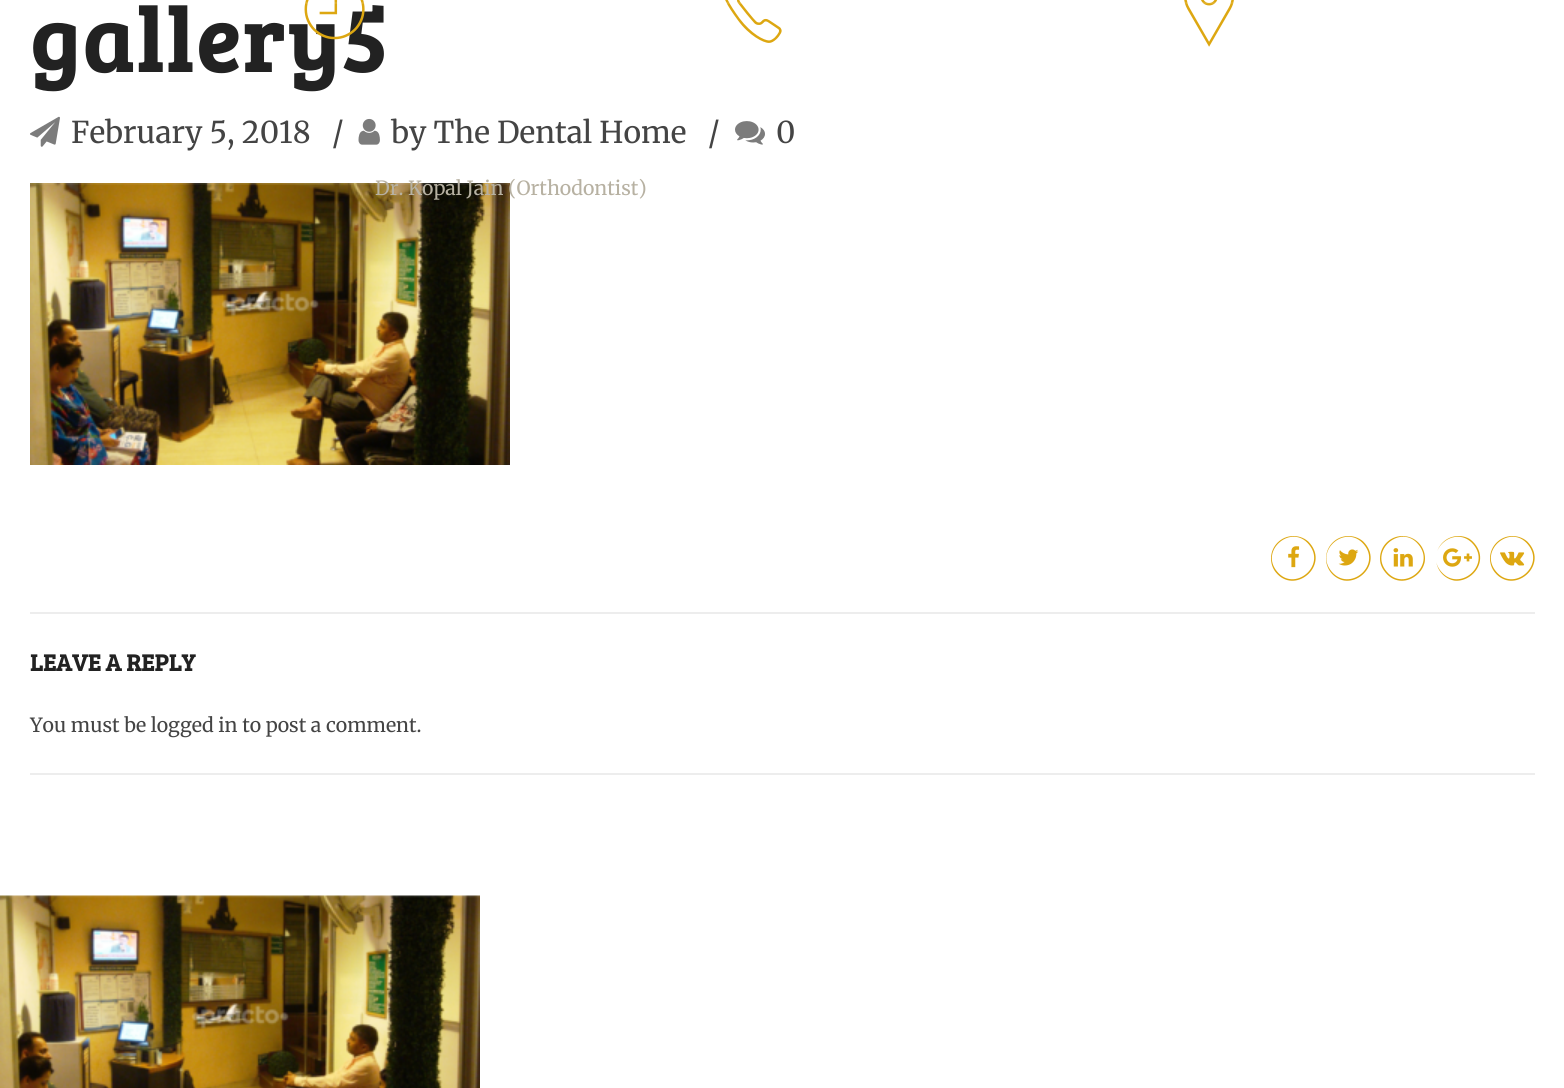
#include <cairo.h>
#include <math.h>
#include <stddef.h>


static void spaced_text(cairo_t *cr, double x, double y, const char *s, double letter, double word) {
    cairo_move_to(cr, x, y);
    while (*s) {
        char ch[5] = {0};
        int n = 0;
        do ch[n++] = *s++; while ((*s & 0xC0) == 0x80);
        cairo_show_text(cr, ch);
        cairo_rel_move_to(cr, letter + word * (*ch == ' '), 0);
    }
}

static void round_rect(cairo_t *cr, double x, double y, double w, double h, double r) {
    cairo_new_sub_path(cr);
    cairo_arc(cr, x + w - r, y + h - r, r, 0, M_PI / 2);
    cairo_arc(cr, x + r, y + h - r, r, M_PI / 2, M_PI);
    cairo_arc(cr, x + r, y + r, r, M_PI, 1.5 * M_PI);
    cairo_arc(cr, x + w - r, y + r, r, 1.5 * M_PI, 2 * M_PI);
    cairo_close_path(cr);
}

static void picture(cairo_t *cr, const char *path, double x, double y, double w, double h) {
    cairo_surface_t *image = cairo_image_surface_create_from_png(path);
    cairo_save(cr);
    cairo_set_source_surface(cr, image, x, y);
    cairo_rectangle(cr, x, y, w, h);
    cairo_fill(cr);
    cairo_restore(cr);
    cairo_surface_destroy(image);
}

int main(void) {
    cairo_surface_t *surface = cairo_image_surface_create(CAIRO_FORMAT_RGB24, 1564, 1088);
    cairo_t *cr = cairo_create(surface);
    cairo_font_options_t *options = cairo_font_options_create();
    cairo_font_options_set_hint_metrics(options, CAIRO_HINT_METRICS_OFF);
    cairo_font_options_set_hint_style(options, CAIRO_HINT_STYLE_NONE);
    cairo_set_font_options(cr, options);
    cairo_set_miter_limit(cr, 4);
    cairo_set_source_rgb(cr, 1, 1, 1);
    cairo_paint(cr);
    cairo_select_font_face(cr, "Bree Serif", CAIRO_FONT_SLANT_NORMAL, CAIRO_FONT_WEIGHT_BOLD);
    cairo_set_font_size(cr, 90);
    cairo_set_source_rgb(cr, 0.133, 0.133, 0.133);
    spaced_text(cr, 30, 72, "gallery5", 3, 0);
    picture(cr, "img1.png", 30, 116, 30, 31);
    cairo_select_font_face(cr, "Merriweather", CAIRO_FONT_SLANT_NORMAL, CAIRO_FONT_WEIGHT_NORMAL);
    cairo_set_font_size(cr, 30);
    cairo_set_source_rgb(cr, 0.267, 0.267, 0.267);
    cairo_move_to(cr, 71, 143);
    cairo_show_text(cr, "February 5, 2018");
    cairo_move_to(cr, 332, 143);
    cairo_show_text(cr, "/");
    picture(cr, "img2.png", 358, 118, 22, 27);
    cairo_move_to(cr, 391, 143);
    cairo_show_text(cr, "by The Dental Home");
    cairo_move_to(cr, 708, 143);
    cairo_show_text(cr, "/");
    picture(cr, "img3.png", 735, 121, 30, 24);
    cairo_move_to(cr, 776, 143);
    cairo_show_text(cr, "0");
    picture(cr, "img4.png", 30, 183, 480, 282);
    cairo_save(cr);
    round_rect(cr, 1271, 536, 45, 45, 22.5);
    cairo_clip(cr);
    cairo_new_path(cr);
    cairo_move_to(cr, 1309.5, 544);
    cairo_curve_to(cr, 1328, 566, 1294.5, 594, 1276.5, 572);
    cairo_curve_to(cr, 1258, 550, 1291.5, 522, 1309.5, 544);
    cairo_close_path(cr);
    cairo_set_source_rgb(cr, 0.867, 0.655, 0.067);
    cairo_set_line_width(cr, 1.5);
    cairo_stroke(cr);
    cairo_restore(cr);
    picture(cr, "img5.png", 1288, 546, 12, 22);
    cairo_save(cr);
    round_rect(cr, 1326, 536, 45, 45, 22.5);
    cairo_clip(cr);
    cairo_new_path(cr);
    cairo_move_to(cr, 1364.5, 544);
    cairo_curve_to(cr, 1383, 566, 1349.5, 594, 1331, 572);
    cairo_curve_to(cr, 1312.5, 550, 1346, 522, 1364.5, 544);
    cairo_close_path(cr);
    cairo_set_source_rgb(cr, 0.867, 0.655, 0.067);
    cairo_set_line_width(cr, 1.5);
    cairo_stroke(cr);
    cairo_restore(cr);
    picture(cr, "img6.png", 1338, 549, 21, 17);
    cairo_save(cr);
    round_rect(cr, 1380, 536, 45, 45, 22.5);
    cairo_clip(cr);
    cairo_new_path(cr);
    cairo_move_to(cr, 1419, 544);
    cairo_curve_to(cr, 1437.5, 566, 1404, 594, 1386, 572);
    cairo_curve_to(cr, 1367.5, 550, 1401, 522, 1419, 544);
    cairo_close_path(cr);
    cairo_set_source_rgb(cr, 0.867, 0.655, 0.067);
    cairo_set_line_width(cr, 1.5);
    cairo_stroke(cr);
    cairo_restore(cr);
    picture(cr, "img7.png", 1393, 548, 20, 19);
    cairo_save(cr);
    round_rect(cr, 1436, 536, 45, 45, 22.5);
    cairo_clip(cr);
    cairo_new_path(cr);
    cairo_move_to(cr, 1474, 544);
    cairo_curve_to(cr, 1492.5, 566, 1459, 594, 1440.5, 572);
    cairo_curve_to(cr, 1422, 550, 1455.5, 522, 1474, 544);
    cairo_close_path(cr);
    cairo_set_source_rgb(cr, 0.867, 0.655, 0.067);
    cairo_set_line_width(cr, 1.5);
    cairo_stroke(cr);
    cairo_restore(cr);
    picture(cr, "img8.png", 1443, 548, 29, 19);
    cairo_save(cr);
    round_rect(cr, 1490, 536, 45, 45, 22.5);
    cairo_clip(cr);
    cairo_new_path(cr);
    cairo_move_to(cr, 1528.5, 544);
    cairo_curve_to(cr, 1547, 566, 1513.5, 594, 1495.5, 572);
    cairo_curve_to(cr, 1477, 550, 1510.5, 522, 1528.5, 544);
    cairo_close_path(cr);
    cairo_set_source_rgb(cr, 0.867, 0.655, 0.067);
    cairo_set_line_width(cr, 1.5);
    cairo_stroke(cr);
    cairo_restore(cr);
    picture(cr, "img9.png", 1500, 551, 25, 15);
    cairo_set_source_rgb(cr, 0.929, 0.929, 0.929);
    cairo_rectangle(cr, 30, 612, 1505, 2);
    cairo_fill(cr);
    cairo_select_font_face(cr, "Bree Serif", CAIRO_FONT_SLANT_NORMAL, CAIRO_FONT_WEIGHT_BOLD);
    cairo_set_font_size(cr, 24);
    cairo_set_source_rgb(cr, 0.133, 0.133, 0.133);
    cairo_move_to(cr, 30, 671);
    cairo_show_text(cr, "LEAVE A REPLY");
    cairo_select_font_face(cr, "Merriweather", CAIRO_FONT_SLANT_NORMAL, CAIRO_FONT_WEIGHT_NORMAL);
    cairo_set_font_size(cr, 19.5);
    cairo_set_source_rgb(cr, 0.267, 0.267, 0.267);
    cairo_move_to(cr, 30, 732);
    cairo_show_text(cr, "You must be logged in to post a comment.");
    cairo_set_source_rgb(cr, 0.929, 0.929, 0.929);
    cairo_rectangle(cr, 30, 773, 1505, 2);
    cairo_fill(cr);
    picture(cr, "img10.png", 304, 0, 61, 40);
    picture(cr, "img11.png", 725, 0, 57, 43);
    picture(cr, "img12.png", 1184, 0, 50, 47);
    cairo_set_source_rgba(cr, 1, 1, 1, 0.1);
    cairo_rectangle(cr, 305, 2, 437, 2);
    cairo_fill(cr);
    cairo_rectangle(cr, 1184, 2, 50, 2);
    cairo_fill(cr);
    cairo_set_source_rgb(cr, 0.718, 0.694, 0.635);
    cairo_move_to(cr, 375, 195);
    cairo_show_text(cr, "Dr. Kopal Jain (Orthodontist)");
    picture(cr, "img13.png", 0, 895, 480, 193);
    cairo_surface_write_to_png(surface, "page.png");
    cairo_font_options_destroy(options);
    cairo_destroy(cr);
    cairo_surface_destroy(surface);
    return 0;
}
